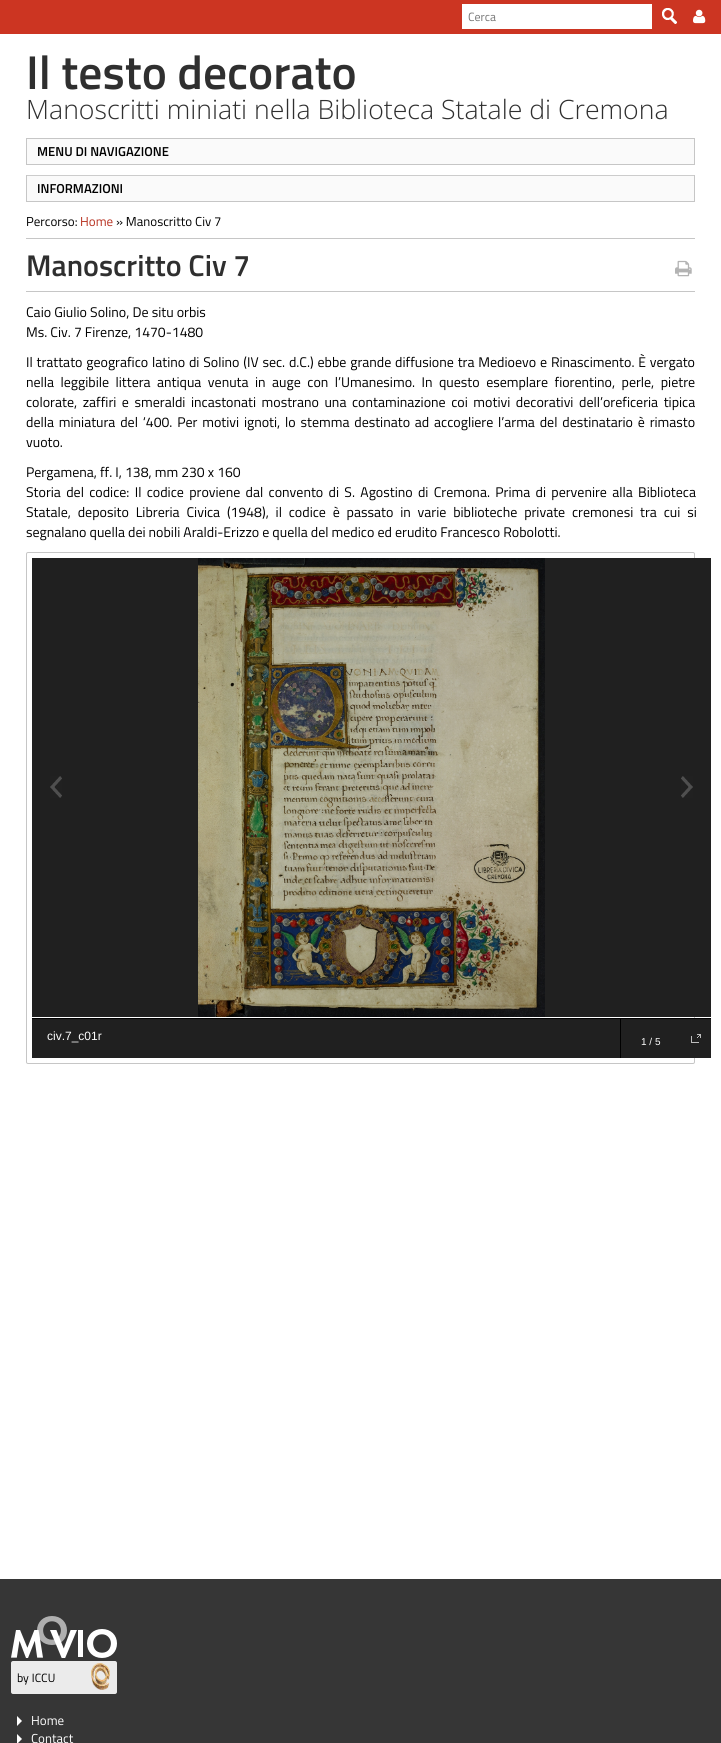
#include <cairo.h>
#include <math.h>
#include <stddef.h>


static void spaced_text(cairo_t *cr, double x, double y, const char *s, double letter, double word) {
    cairo_move_to(cr, x, y);
    while (*s) {
        char ch[5] = {0};
        int n = 0;
        do ch[n++] = *s++; while ((*s & 0xC0) == 0x80);
        cairo_show_text(cr, ch);
        cairo_rel_move_to(cr, letter + word * (*ch == ' '), 0);
    }
}

static void round_rect(cairo_t *cr, double x, double y, double w, double h, double r) {
    cairo_new_sub_path(cr);
    cairo_arc(cr, x + w - r, y + h - r, r, 0, M_PI / 2);
    cairo_arc(cr, x + r, y + h - r, r, M_PI / 2, M_PI);
    cairo_arc(cr, x + r, y + r, r, M_PI, 1.5 * M_PI);
    cairo_arc(cr, x + w - r, y + r, r, 1.5 * M_PI, 2 * M_PI);
    cairo_close_path(cr);
}

static void picture(cairo_t *cr, const char *path, double x, double y, double w, double h) {
    cairo_surface_t *image = cairo_image_surface_create_from_png(path);
    cairo_save(cr);
    cairo_set_source_surface(cr, image, x, y);
    cairo_rectangle(cr, x, y, w, h);
    cairo_fill(cr);
    cairo_restore(cr);
    cairo_surface_destroy(image);
}

int main(void) {
    cairo_surface_t *surface = cairo_image_surface_create(CAIRO_FORMAT_RGB24, 721, 1743);
    cairo_t *cr = cairo_create(surface);
    cairo_font_options_t *options = cairo_font_options_create();
    cairo_font_options_set_hint_metrics(options, CAIRO_HINT_METRICS_OFF);
    cairo_font_options_set_hint_style(options, CAIRO_HINT_STYLE_NONE);
    cairo_set_font_options(cr, options);
    cairo_set_miter_limit(cr, 4);
    cairo_set_source_rgb(cr, 1, 1, 1);
    cairo_paint(cr);
    cairo_set_source_rgb(cr, 0.8, 0.208, 0.133);
    cairo_rectangle(cr, 0, 0, 721, 34);
    cairo_fill(cr);
    cairo_set_source_rgb(cr, 1, 1, 1);
    cairo_rectangle(cr, 462, 4, 190, 25);
    cairo_fill(cr);
    cairo_select_font_face(cr, "Titillium Web", CAIRO_FONT_SLANT_NORMAL, CAIRO_FONT_WEIGHT_NORMAL);
    cairo_set_font_size(cr, 12);
    cairo_set_source_rgb(cr, 0.459, 0.459, 0.459);
    cairo_move_to(cr, 468, 21);
    cairo_show_text(cr, "Cerca");
    picture(cr, "img1.png", 662, 8, 15, 16);
    picture(cr, "img2.png", 693, 9, 13, 15);
    cairo_select_font_face(cr, "Titillium Web SemiBold", CAIRO_FONT_SLANT_NORMAL, CAIRO_FONT_WEIGHT_NORMAL);
    cairo_set_font_size(cr, 47.5);
    cairo_set_source_rgb(cr, 0.184, 0.184, 0.184);
    cairo_move_to(cr, 26, 89);
    cairo_show_text(cr, "Il testo decorato");
    cairo_select_font_face(cr, "Open Sans Light", CAIRO_FONT_SLANT_NORMAL, CAIRO_FONT_WEIGHT_NORMAL);
    cairo_set_font_size(cr, 26.65);
    cairo_move_to(cr, 26, 119);
    cairo_show_text(cr, "Manoscritti miniati nella Biblioteca Statale di Cremona");
    cairo_set_source_rgb(cr, 0.98, 0.98, 0.98);
    cairo_rectangle(cr, 26.5, 138.5, 668, 26);
    cairo_fill_preserve(cr);
    cairo_set_source_rgb(cr, 0.776, 0.776, 0.776);
    cairo_set_line_width(cr, 1);
    cairo_stroke(cr);
    cairo_select_font_face(cr, "Titillium Web SemiBold", CAIRO_FONT_SLANT_NORMAL, CAIRO_FONT_WEIGHT_NORMAL);
    cairo_set_font_size(cr, 13);
    cairo_set_source_rgb(cr, 0, 0, 0);
    cairo_move_to(cr, 37, 156);
    cairo_show_text(cr, "MENU DI NAVIGAZIONE");
    cairo_set_source_rgb(cr, 0.98, 0.98, 0.98);
    cairo_rectangle(cr, 27, 176, 667, 25);
    cairo_fill(cr);
    cairo_set_source_rgb(cr, 0.8, 0.8, 0.8);
    cairo_rectangle(cr, 26, 175, 669, 1);
    cairo_fill(cr);
    cairo_set_source_rgb(cr, 0.776, 0.776, 0.776);
    cairo_rectangle(cr, 694, 175, 1, 27);
    cairo_fill(cr);
    cairo_rectangle(cr, 26, 201, 669, 1);
    cairo_fill(cr);
    cairo_rectangle(cr, 26, 175, 1, 27);
    cairo_fill(cr);
    cairo_set_source_rgb(cr, 0, 0, 0);
    cairo_move_to(cr, 37, 193);
    cairo_show_text(cr, "INFORMAZIONI");
    cairo_select_font_face(cr, "Titillium Web", CAIRO_FONT_SLANT_NORMAL, CAIRO_FONT_WEIGHT_NORMAL);
    cairo_move_to(cr, 26, 226);
    cairo_show_text(cr, "Percorso:");
    cairo_set_source_rgb(cr, 0.714, 0.184, 0.118);
    cairo_move_to(cr, 80, 226);
    cairo_show_text(cr, "Home");
    cairo_set_source_rgb(cr, 0, 0, 0);
    cairo_move_to(cr, 116, 226);
    cairo_show_text(cr, "» Manoscritto Civ 7");
    cairo_set_source_rgb(cr, 0.776, 0.776, 0.776);
    cairo_rectangle(cr, 26, 238, 669, 1);
    cairo_fill(cr);
    cairo_rectangle(cr, 26, 291, 669, 1);
    cairo_fill(cr);
    cairo_select_font_face(cr, "Titillium Web SemiBold", CAIRO_FONT_SLANT_NORMAL, CAIRO_FONT_WEIGHT_NORMAL);
    cairo_set_font_size(cr, 30);
    cairo_set_source_rgb(cr, 0.184, 0.184, 0.184);
    cairo_move_to(cr, 26, 276);
    cairo_show_text(cr, "Manoscritto Civ 7");
    picture(cr, "img3.png", 675, 260, 17, 17);
    cairo_select_font_face(cr, "Titillium Web", CAIRO_FONT_SLANT_NORMAL, CAIRO_FONT_WEIGHT_NORMAL);
    cairo_set_font_size(cr, 14);
    cairo_set_source_rgb(cr, 0, 0, 0);
    cairo_move_to(cr, 26, 317);
    cairo_show_text(cr, "Caio Giulio Solino, De situ orbis");
    cairo_move_to(cr, 26, 337);
    cairo_show_text(cr, "Ms. Civ. 7 Firenze, 1470-1480");
    spaced_text(cr, 26, 367, "Il trattato geografico latino di Solino (IV sec. d.C.) ebbe grande diffusione tra Medioevo e Rinascimento. È vergato", 0, 0.75);
    spaced_text(cr, 26, 387, "nella leggibile littera antiqua venuta in auge con l’Umanesimo. In questo esemplare fiorentino, perle, pietre", 0, 3.4);
    spaced_text(cr, 26, 407, "colorate, zaffiri e smeraldi incastonati mostrano una contaminazione coi motivi decorativi dell’oreficeria tipica", 0, 2.5);
    spaced_text(cr, 26, 427, "della miniatura del ‘400. Per motivi ignoti, lo stemma destinato ad accogliere l’arma del destinatario è rimasto", 0, 1.75);
    cairo_move_to(cr, 26, 447);
    cairo_show_text(cr, "vuoto.");
    cairo_move_to(cr, 26, 477);
    cairo_show_text(cr, "Pergamena, ff. I, 138, mm 230 x 160");
    spaced_text(cr, 26, 497, "Storia del codice: Il codice proviene dal convento di S. Agostino di Cremona. Prima di pervenire alla Biblioteca", 0, 2.25);
    spaced_text(cr, 26, 517, "Statale, deposito Libreria Civica (1948), il codice è passato in varie biblioteche private cremonesi tra cui si", 0, 3.75);
    cairo_move_to(cr, 26, 537);
    cairo_show_text(cr, "segnalano quella dei nobili Araldi-Erizzo e quella del medico ed erudito Francesco Robolotti.");
    round_rect(cr, 26.5, 552.5, 668, 511, 1.5);
    cairo_set_source_rgb(cr, 0.776, 0.776, 0.776);
    cairo_stroke(cr);
    cairo_set_source_rgb(cr, 0.125, 0.125, 0.125);
    cairo_rectangle(cr, 32, 558, 679, 459);
    cairo_fill(cr);
    picture(cr, "img4.png", 198, 558, 347, 459);
    picture(cr, "img5.png", 50, 776, 12, 22);
    picture(cr, "img6.png", 681, 776, 12, 22);
    cairo_rectangle(cr, 32, 1019, 679, 39);
    cairo_fill(cr);
    cairo_set_source_rgb(cr, 0, 0, 0);
    cairo_rectangle(cr, 32, 1018, 679, 1);
    cairo_fill(cr);
    cairo_select_font_face(cr, "Liberation Sans", CAIRO_FONT_SLANT_NORMAL, CAIRO_FONT_WEIGHT_NORMAL);
    cairo_set_font_size(cr, 12);
    cairo_set_source_rgb(cr, 1, 1, 1);
    cairo_move_to(cr, 47, 1040);
    cairo_show_text(cr, "civ.7_c01r");
    cairo_set_source_rgb(cr, 0, 0, 0);
    cairo_rectangle(cr, 620, 1018, 1, 40);
    cairo_fill(cr);
    cairo_set_font_size(cr, 10);
    cairo_set_source_rgb(cr, 1, 1, 1);
    cairo_move_to(cr, 641, 1045);
    cairo_show_text(cr, "1 / 5");
    picture(cr, "img7.png", 691, 1034, 10, 9);
    cairo_set_source_rgb(cr, 0.212, 0.212, 0.212);
    cairo_rectangle(cr, 0, 1579, 721, 164);
    cairo_fill(cr);
    picture(cr, "img8.png", 11, 1616, 106, 78);
    cairo_set_source_rgb(cr, 1, 1, 1);
    cairo_new_path(cr);
    cairo_move_to(cr, 17, 1726);
    cairo_line_to(cr, 17, 1716);
    cairo_line_to(cr, 22, 1721);
    cairo_close_path(cr);
    cairo_fill(cr);
    cairo_select_font_face(cr, "Titillium Web", CAIRO_FONT_SLANT_NORMAL, CAIRO_FONT_WEIGHT_NORMAL);
    cairo_set_font_size(cr, 13);
    cairo_move_to(cr, 31, 1725);
    cairo_show_text(cr, "Home");
    cairo_new_path(cr);
    cairo_move_to(cr, 17, 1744);
    cairo_line_to(cr, 17, 1734);
    cairo_line_to(cr, 22, 1739);
    cairo_close_path(cr);
    cairo_fill(cr);
    cairo_move_to(cr, 31, 1743);
    cairo_show_text(cr, "Contact");
    cairo_surface_write_to_png(surface, "page.png");
    cairo_font_options_destroy(options);
    cairo_destroy(cr);
    cairo_surface_destroy(surface);
    return 0;
}
